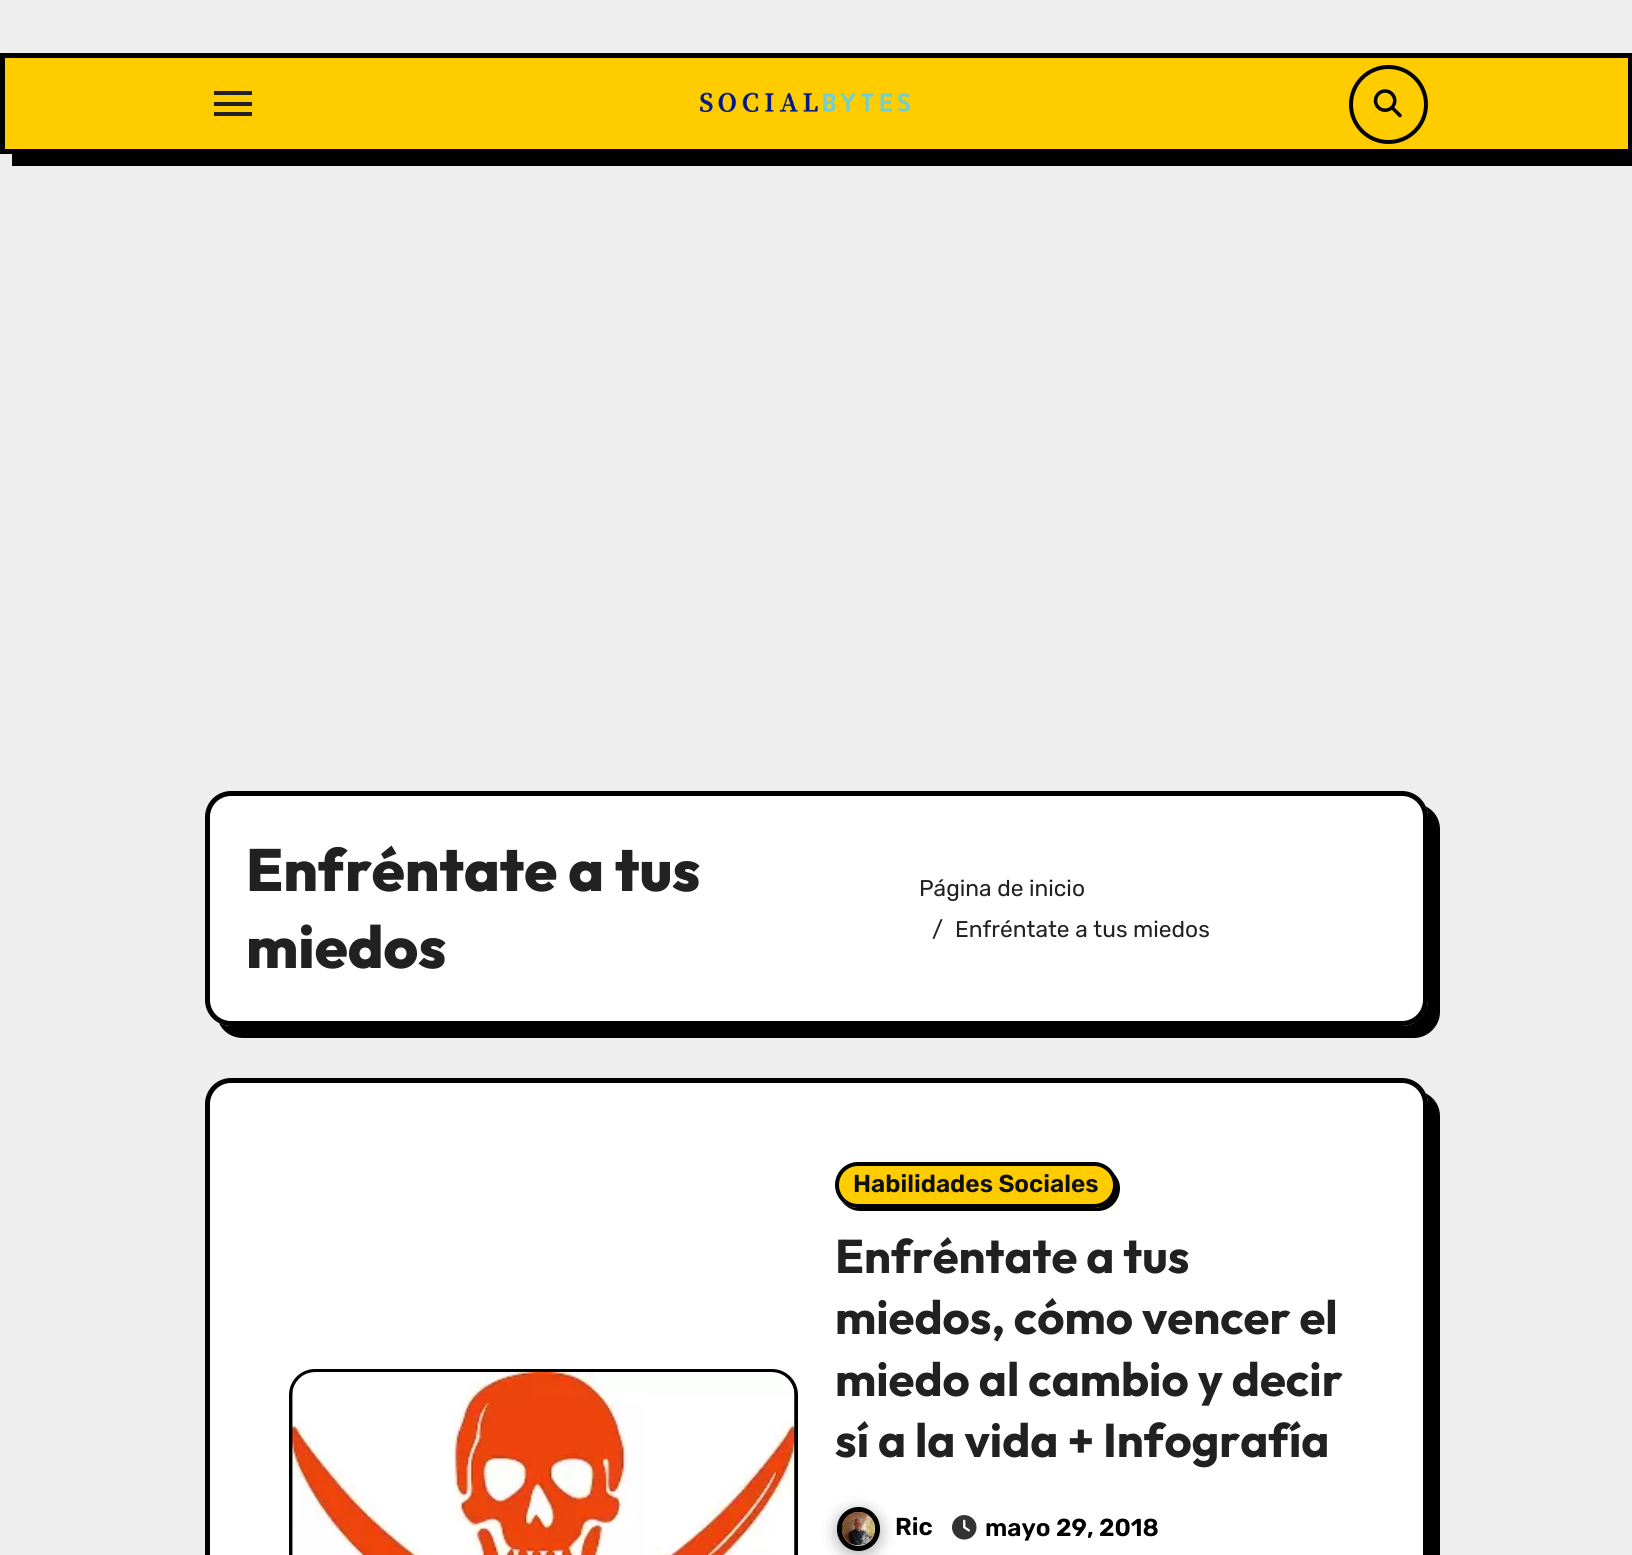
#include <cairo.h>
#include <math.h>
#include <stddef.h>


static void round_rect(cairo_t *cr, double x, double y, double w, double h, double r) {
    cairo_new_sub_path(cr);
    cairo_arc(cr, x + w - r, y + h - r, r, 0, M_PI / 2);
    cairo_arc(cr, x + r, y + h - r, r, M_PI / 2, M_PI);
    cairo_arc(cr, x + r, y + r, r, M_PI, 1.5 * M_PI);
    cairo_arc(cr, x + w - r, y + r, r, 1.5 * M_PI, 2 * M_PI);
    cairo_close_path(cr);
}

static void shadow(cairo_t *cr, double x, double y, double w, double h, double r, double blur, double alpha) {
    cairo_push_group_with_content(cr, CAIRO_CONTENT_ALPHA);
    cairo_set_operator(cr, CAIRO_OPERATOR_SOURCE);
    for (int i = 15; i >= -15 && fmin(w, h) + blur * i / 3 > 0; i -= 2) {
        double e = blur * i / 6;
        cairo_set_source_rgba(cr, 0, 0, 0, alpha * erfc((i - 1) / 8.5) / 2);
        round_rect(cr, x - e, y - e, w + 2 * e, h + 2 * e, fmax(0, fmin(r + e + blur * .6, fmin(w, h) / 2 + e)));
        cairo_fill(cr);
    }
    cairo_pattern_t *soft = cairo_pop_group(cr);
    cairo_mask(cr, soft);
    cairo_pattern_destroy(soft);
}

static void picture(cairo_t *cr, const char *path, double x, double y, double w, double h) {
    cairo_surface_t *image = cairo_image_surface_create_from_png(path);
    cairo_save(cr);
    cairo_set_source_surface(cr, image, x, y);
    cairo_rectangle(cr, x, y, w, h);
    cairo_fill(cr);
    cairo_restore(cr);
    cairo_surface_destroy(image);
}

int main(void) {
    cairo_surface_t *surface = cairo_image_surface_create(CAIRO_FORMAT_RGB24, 1632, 1555);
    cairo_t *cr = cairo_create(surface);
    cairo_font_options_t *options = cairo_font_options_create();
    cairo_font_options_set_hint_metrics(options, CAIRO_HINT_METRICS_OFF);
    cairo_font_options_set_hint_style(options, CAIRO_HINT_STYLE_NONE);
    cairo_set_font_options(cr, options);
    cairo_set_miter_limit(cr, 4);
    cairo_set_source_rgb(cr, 0.933, 0.933, 0.933);
    cairo_paint(cr);
    cairo_set_source_rgb(cr, 0, 0, 0);
    cairo_new_path(cr);
    cairo_move_to(cr, 12, 154);
    cairo_line_to(cr, 12, 166);
    cairo_line_to(cr, 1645, 166);
    cairo_line_to(cr, 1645, 65);
    cairo_line_to(cr, 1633, 65);
    cairo_line_to(cr, 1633, 154);
    cairo_close_path(cr);
    cairo_fill(cr);
    cairo_set_source_rgb(cr, 1, 0.8, 0);
    cairo_rectangle(cr, 2.5, 55.5, 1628, 96);
    cairo_fill_preserve(cr);
    cairo_set_source_rgb(cr, 0, 0, 0);
    cairo_set_line_width(cr, 5);
    cairo_stroke(cr);
    cairo_set_source_rgb(cr, 0.129, 0.129, 0.129);
    cairo_rectangle(cr, 214, 91, 38, 4);
    cairo_fill(cr);
    cairo_rectangle(cr, 214, 102, 38, 4);
    cairo_fill(cr);
    cairo_rectangle(cr, 214, 112, 38, 4);
    cairo_fill(cr);
    picture(cr, "img1.png", 700, 92, 210, 20);
    cairo_arc(cr, 1388.5, 104.5, 37.5, 0, 2 * M_PI);
    cairo_set_source_rgb(cr, 0, 0, 0);
    cairo_set_line_width(cr, 4);
    cairo_stroke(cr);
    picture(cr, "img2.png", 1373, 89, 29, 29);
    cairo_new_path(cr);
    cairo_move_to(cr, 219, 1023);
    cairo_curve_to(cr, 223, 1032, 232, 1038, 243, 1038);
    cairo_line_to(cr, 1414, 1038);
    cairo_curve_to(cr, 1428, 1038, 1440, 1026, 1440, 1012);
    cairo_line_to(cr, 1440, 829);
    cairo_curve_to(cr, 1440, 819, 1434, 810, 1425, 806);
    cairo_curve_to(cr, 1427, 809, 1428, 813, 1428, 817);
    cairo_line_to(cr, 1428, 999);
    cairo_curve_to(cr, 1428, 1014, 1416, 1026, 1402, 1026);
    cairo_line_to(cr, 231, 1026);
    cairo_curve_to(cr, 227, 1026, 223, 1025, 219, 1023);
    cairo_close_path(cr);
    cairo_fill(cr);
    cairo_set_source_rgb(cr, 1, 1, 1);
    round_rect(cr, 207.5, 793.5, 1218, 230, 23.5);
    cairo_fill_preserve(cr);
    cairo_set_source_rgb(cr, 0, 0, 0);
    cairo_set_line_width(cr, 5);
    cairo_stroke(cr);
    cairo_select_font_face(cr, "Outfit ExtraBold", CAIRO_FONT_SLANT_NORMAL, CAIRO_FONT_WEIGHT_NORMAL);
    cairo_set_font_size(cr, 59.5);
    cairo_set_source_rgb(cr, 0.129, 0.129, 0.129);
    cairo_move_to(cr, 246, 891);
    cairo_show_text(cr, "Enfréntate a tus");
    cairo_move_to(cr, 246, 968);
    cairo_show_text(cr, "miedos");
    cairo_select_font_face(cr, "Rubik", CAIRO_FONT_SLANT_NORMAL, CAIRO_FONT_WEIGHT_NORMAL);
    cairo_set_font_size(cr, 22.75);
    cairo_move_to(cr, 919, 896);
    cairo_show_text(cr, "Página de inicio");
    cairo_move_to(cr, 932, 937);
    cairo_show_text(cr, "/");
    cairo_move_to(cr, 955, 937);
    cairo_show_text(cr, "Enfréntate a tus miedos");
    cairo_set_source_rgb(cr, 0, 0, 0);
    cairo_new_path(cr);
    cairo_move_to(cr, 219, 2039);
    cairo_curve_to(cr, 223, 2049, 232, 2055, 243, 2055);
    cairo_line_to(cr, 1414, 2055);
    cairo_curve_to(cr, 1428, 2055, 1440, 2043, 1440, 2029);
    cairo_line_to(cr, 1440, 1116);
    cairo_curve_to(cr, 1440, 1106, 1434, 1097, 1425, 1093);
    cairo_curve_to(cr, 1427, 1096, 1428, 1100, 1428, 1104);
    cairo_line_to(cr, 1428, 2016);
    cairo_curve_to(cr, 1428, 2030, 1416, 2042, 1402, 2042);
    cairo_line_to(cr, 231, 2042);
    cairo_curve_to(cr, 227, 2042, 223, 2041, 219, 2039);
    cairo_close_path(cr);
    cairo_fill(cr);
    cairo_set_source_rgb(cr, 1, 1, 1);
    round_rect(cr, 207.5, 1080.5, 1218, 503, 23.5);
    cairo_fill_preserve(cr);
    cairo_set_source_rgb(cr, 0, 0, 0);
    cairo_stroke(cr);
    round_rect(cr, 291, 1371, 505, 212, 24);
    cairo_set_line_width(cr, 4);
    cairo_stroke(cr);
    picture(cr, "img3.png", 292, 1372, 503, 183);
    cairo_new_path(cr);
    cairo_move_to(cr, 842, 1202);
    cairo_curve_to(cr, 846, 1207, 853, 1211, 860, 1211);
    cairo_line_to(cr, 1098, 1211);
    cairo_curve_to(cr, 1110, 1211, 1120, 1201, 1120, 1188);
    cairo_curve_to(cr, 1120, 1182, 1117, 1176, 1112, 1172);
    cairo_curve_to(cr, 1115, 1175, 1116, 1180, 1116, 1185);
    cairo_curve_to(cr, 1116, 1197, 1106, 1208, 1094, 1208);
    cairo_line_to(cr, 858, 1208);
    cairo_curve_to(cr, 852, 1208, 846, 1205, 842, 1202);
    cairo_close_path(cr);
    cairo_fill(cr);
    cairo_set_source_rgb(cr, 1, 0.8, 0);
    round_rect(cr, 837, 1164, 278, 42, 21);
    cairo_fill_preserve(cr);
    cairo_set_source_rgb(cr, 0, 0, 0);
    cairo_stroke(cr);
    cairo_select_font_face(cr, "Rubik SemiBold", CAIRO_FONT_SLANT_NORMAL, CAIRO_FONT_WEIGHT_NORMAL);
    cairo_set_font_size(cr, 24.5);
    cairo_set_source_rgb(cr, 0.059, 0.063, 0.071);
    cairo_move_to(cr, 853, 1192);
    cairo_show_text(cr, "Habilidades Sociales");
    cairo_select_font_face(cr, "Outfit", CAIRO_FONT_SLANT_NORMAL, CAIRO_FONT_WEIGHT_BOLD);
    cairo_set_font_size(cr, 47.25);
    cairo_set_source_rgb(cr, 0.129, 0.129, 0.129);
    cairo_move_to(cr, 835, 1273);
    cairo_show_text(cr, "Enfréntate a tus");
    cairo_move_to(cr, 835, 1334);
    cairo_show_text(cr, "miedos, cómo vencer el");
    cairo_move_to(cr, 835, 1396);
    cairo_show_text(cr, "miedo al cambio y decir");
    cairo_move_to(cr, 835, 1457);
    cairo_show_text(cr, "sí a la vida + Infografía");
    cairo_set_source_rgb(cr, 0.129, 0.129, 0.129);
    shadow(cr, 835, 1509, 47, 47, 23.5, 7, 0.3);
    round_rect(cr, 839.5, 1509.5, 38, 39, 19);
    cairo_set_source_rgb(cr, 0, 0, 0);
    cairo_set_line_width(cr, 5);
    cairo_stroke(cr);
    picture(cr, "img4.png", 841, 1512, 34, 34);
    cairo_select_font_face(cr, "Rubik SemiBold", CAIRO_FONT_SLANT_NORMAL, CAIRO_FONT_WEIGHT_NORMAL);
    cairo_set_font_size(cr, 24.5);
    cairo_move_to(cr, 895, 1535);
    cairo_show_text(cr, "Ric");
    picture(cr, "img5.png", 952, 1515, 25, 25);
    cairo_move_to(cr, 985, 1536);
    cairo_show_text(cr, "mayo 29, 2018");
    cairo_surface_write_to_png(surface, "page.png");
    cairo_font_options_destroy(options);
    cairo_destroy(cr);
    cairo_surface_destroy(surface);
    return 0;
}
